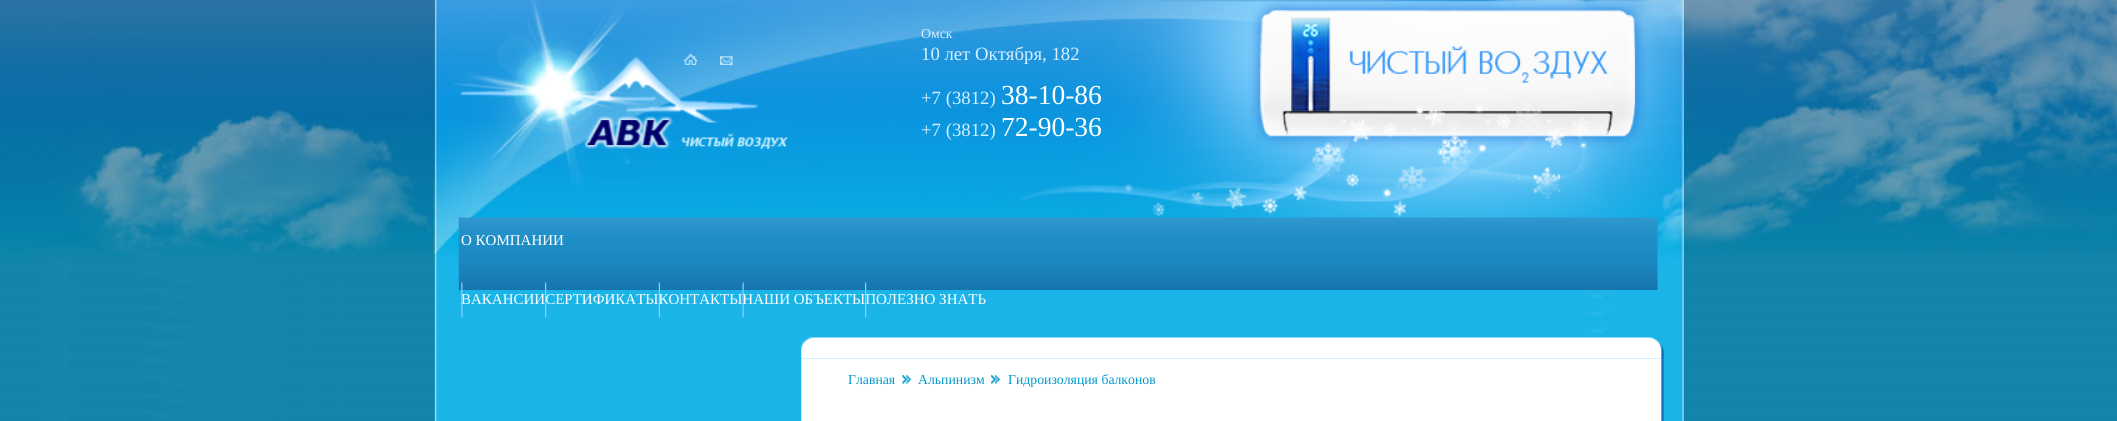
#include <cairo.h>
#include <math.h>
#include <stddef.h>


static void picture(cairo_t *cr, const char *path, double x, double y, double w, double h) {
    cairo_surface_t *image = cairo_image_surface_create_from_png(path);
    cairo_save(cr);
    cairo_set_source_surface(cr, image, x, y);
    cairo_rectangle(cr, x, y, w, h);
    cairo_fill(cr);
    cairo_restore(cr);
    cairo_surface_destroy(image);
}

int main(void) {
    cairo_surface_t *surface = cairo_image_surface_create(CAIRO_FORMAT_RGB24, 2117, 421);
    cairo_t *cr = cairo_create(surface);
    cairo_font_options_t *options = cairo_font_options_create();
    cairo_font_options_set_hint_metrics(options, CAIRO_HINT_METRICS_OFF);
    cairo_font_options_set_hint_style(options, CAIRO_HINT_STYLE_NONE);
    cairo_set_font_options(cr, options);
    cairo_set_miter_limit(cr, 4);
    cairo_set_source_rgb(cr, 1, 1, 1);
    cairo_paint(cr);
    picture(cr, "img1.png", 0, 257, 2117, 164);
    picture(cr, "img2.png", 0, 0, 2117, 258);
    picture(cr, "img3.png", 453, 0, 335, 185);
    picture(cr, "img4.png", 683, 53, 15, 12);
    picture(cr, "img5.png", 720, 56, 13, 9);
    picture(cr, "img7.png", 458, 217, 1200, 73);
    picture(cr, "img6.png", 1019, 0, 665, 218);
    cairo_select_font_face(cr, "Liberation Serif", CAIRO_FONT_SLANT_NORMAL, CAIRO_FONT_WEIGHT_NORMAL);
    cairo_set_font_size(cr, 13.75);
    cairo_set_source_rgb(cr, 0.835, 0.941, 1);
    cairo_move_to(cr, 921, 38);
    cairo_show_text(cr, "Омск");
    cairo_set_font_size(cr, 18.75);
    cairo_move_to(cr, 921, 60);
    cairo_show_text(cr, "10 лет Октября, 182");
    cairo_move_to(cr, 921, 104);
    cairo_show_text(cr, "+7 (3812)");
    cairo_set_font_size(cr, 27.5);
    cairo_set_source_rgb(cr, 1, 1, 1);
    cairo_move_to(cr, 1001, 104);
    cairo_show_text(cr, "38-10-86");
    cairo_set_font_size(cr, 18.75);
    cairo_set_source_rgb(cr, 0.835, 0.941, 1);
    cairo_move_to(cr, 921, 136);
    cairo_show_text(cr, "+7 (3812)");
    cairo_set_font_size(cr, 27.5);
    cairo_set_source_rgb(cr, 1, 1, 1);
    cairo_move_to(cr, 1001, 136);
    cairo_show_text(cr, "72-90-36");
    cairo_set_font_size(cr, 15);
    cairo_move_to(cr, 461, 245);
    cairo_show_text(cr, "О КОМПАНИИ");
    picture(cr, "img8.png", 545, 282, 2, 36);
    picture(cr, "img9.png", 658, 282, 2, 36);
    picture(cr, "img10.png", 742, 282, 2, 36);
    picture(cr, "img8.png", 865, 282, 2, 36);
    picture(cr, "img11.png", 461, 282, 2, 36);
    cairo_move_to(cr, 461, 304);
    cairo_show_text(cr, "ВАКАНСИИСЕРТИФИКАТЫКОНТАКТЫНАШИ ОБЪЕКТЫПОЛЕЗНО ЗНАТЬ");
    picture(cr, "img12.png", 801, 337, 863, 22);
    picture(cr, "img13.png", 801, 358, 863, 63);
    cairo_set_font_size(cr, 13.75);
    cairo_set_source_rgb(cr, 0, 0.6, 0.8);
    cairo_move_to(cr, 848, 384);
    cairo_show_text(cr, "Главная");
    picture(cr, "img14.png", 902, 375, 10, 9);
    cairo_move_to(cr, 918, 384);
    cairo_show_text(cr, "Альпинизм");
    picture(cr, "img15.png", 991, 375, 9, 9);
    cairo_move_to(cr, 1008, 384);
    cairo_show_text(cr, "Гидроизоляция балконов");
    cairo_surface_write_to_png(surface, "page.png");
    cairo_font_options_destroy(options);
    cairo_destroy(cr);
    cairo_surface_destroy(surface);
    return 0;
}
